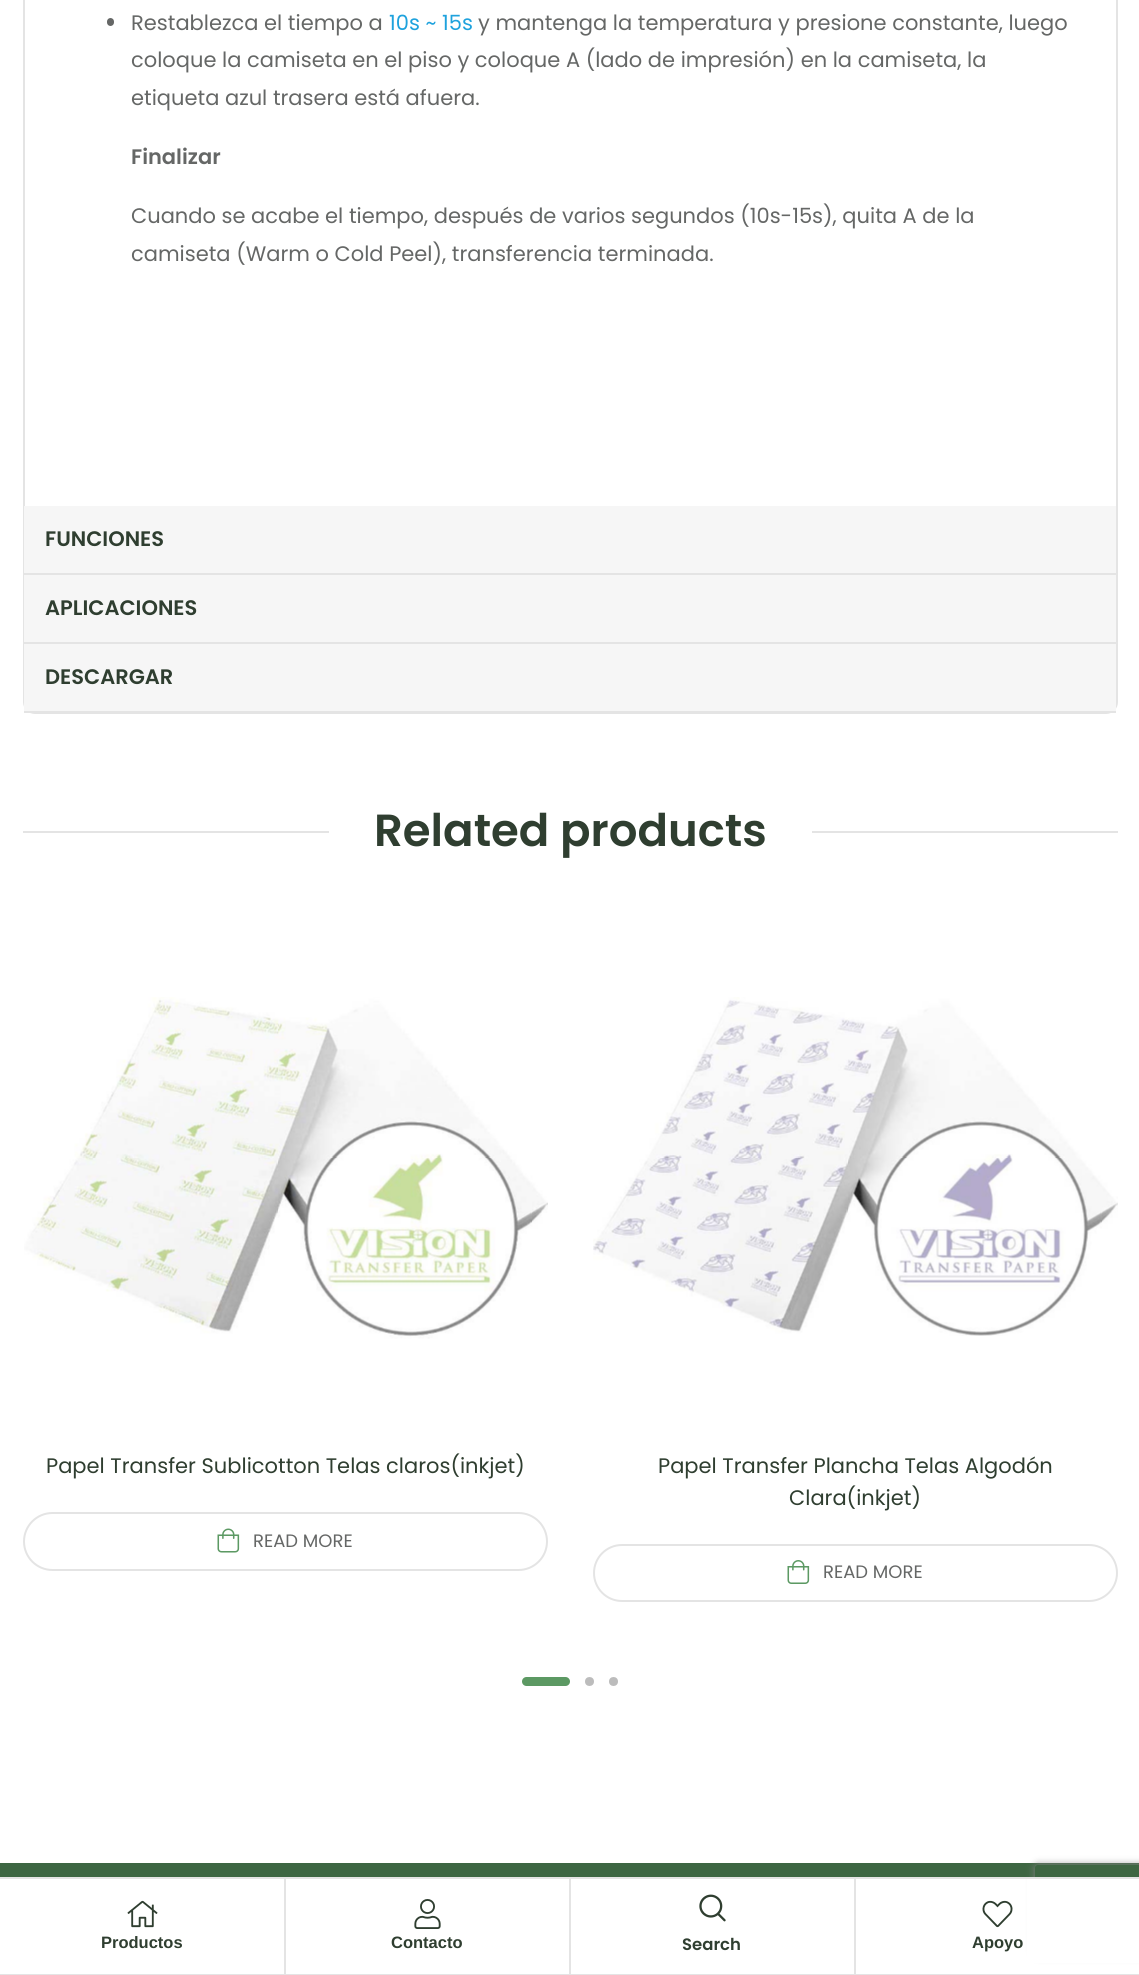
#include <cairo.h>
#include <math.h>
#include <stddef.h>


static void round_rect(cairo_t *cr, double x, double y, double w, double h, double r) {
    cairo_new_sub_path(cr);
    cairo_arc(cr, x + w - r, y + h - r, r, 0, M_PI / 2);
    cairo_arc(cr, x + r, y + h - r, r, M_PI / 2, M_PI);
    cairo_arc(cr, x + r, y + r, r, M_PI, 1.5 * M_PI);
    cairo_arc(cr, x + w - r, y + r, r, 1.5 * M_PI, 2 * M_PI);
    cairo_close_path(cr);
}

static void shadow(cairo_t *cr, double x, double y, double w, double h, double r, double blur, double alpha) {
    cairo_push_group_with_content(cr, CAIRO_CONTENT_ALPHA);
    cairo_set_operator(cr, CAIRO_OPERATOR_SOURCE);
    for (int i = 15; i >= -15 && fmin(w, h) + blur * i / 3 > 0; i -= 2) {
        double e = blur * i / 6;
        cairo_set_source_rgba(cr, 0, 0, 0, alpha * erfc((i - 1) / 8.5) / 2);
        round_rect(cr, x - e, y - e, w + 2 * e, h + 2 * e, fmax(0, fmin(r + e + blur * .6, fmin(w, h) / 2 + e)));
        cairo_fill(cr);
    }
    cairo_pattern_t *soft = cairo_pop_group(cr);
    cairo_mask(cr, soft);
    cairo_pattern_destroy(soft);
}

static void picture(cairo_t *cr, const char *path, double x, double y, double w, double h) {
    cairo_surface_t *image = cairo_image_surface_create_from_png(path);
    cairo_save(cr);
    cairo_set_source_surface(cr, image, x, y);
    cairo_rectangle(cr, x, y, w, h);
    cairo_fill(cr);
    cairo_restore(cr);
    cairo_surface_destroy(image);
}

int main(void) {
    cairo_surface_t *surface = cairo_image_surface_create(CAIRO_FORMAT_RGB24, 1139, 1975);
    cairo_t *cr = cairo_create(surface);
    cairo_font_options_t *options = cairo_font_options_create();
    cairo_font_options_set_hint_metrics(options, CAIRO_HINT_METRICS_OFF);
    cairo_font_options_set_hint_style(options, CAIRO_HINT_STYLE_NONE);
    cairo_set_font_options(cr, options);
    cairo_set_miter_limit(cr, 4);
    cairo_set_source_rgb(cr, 1, 1, 1);
    cairo_paint(cr);
    round_rect(cr, 24, -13, 1093, 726, 11);
    cairo_set_source_rgb(cr, 0.894, 0.894, 0.894);
    cairo_stroke(cr);
    cairo_set_source_rgb(cr, 0.396, 0.404, 0.4);
    round_rect(cr, 107, 18, 7, 8, 3.5);
    cairo_fill(cr);
    cairo_select_font_face(cr, "Poppins", CAIRO_FONT_SLANT_NORMAL, CAIRO_FONT_WEIGHT_NORMAL);
    cairo_set_font_size(cr, 21);
    cairo_move_to(cr, 131, 30);
    cairo_show_text(cr, "Restablezca el tiempo a");
    cairo_set_source_rgb(cr, 0.118, 0.635, 0.867);
    cairo_move_to(cr, 389, 30);
    cairo_show_text(cr, "10s ~ 15s");
    cairo_set_source_rgb(cr, 0.396, 0.404, 0.4);
    cairo_move_to(cr, 478, 30);
    cairo_show_text(cr, "y mantenga la temperatura y presione constante, luego");
    cairo_move_to(cr, 131, 67);
    cairo_show_text(cr, "coloque la camiseta en el piso y coloque A (lado de impresión) en la camiseta, la");
    cairo_move_to(cr, 131, 105);
    cairo_show_text(cr, "etiqueta azul trasera está afuera.");
    cairo_select_font_face(cr, "Poppins SemiBold", CAIRO_FONT_SLANT_NORMAL, CAIRO_FONT_WEIGHT_NORMAL);
    cairo_move_to(cr, 131, 164);
    cairo_show_text(cr, "Finalizar");
    cairo_select_font_face(cr, "Poppins", CAIRO_FONT_SLANT_NORMAL, CAIRO_FONT_WEIGHT_NORMAL);
    cairo_move_to(cr, 131, 223);
    cairo_show_text(cr, "Cuando se acabe el tiempo, después de varios segundos (10s-15s), quita A de la");
    cairo_move_to(cr, 131, 261);
    cairo_show_text(cr, "camiseta (Warm o Cold Peel), transferencia terminada.");
    cairo_set_source_rgb(cr, 0.961, 0.961, 0.961);
    cairo_rectangle(cr, 24, 506, 1092, 67);
    cairo_fill(cr);
    cairo_set_source_rgb(cr, 0.894, 0.894, 0.894);
    cairo_rectangle(cr, 24, 573, 1092, 2);
    cairo_fill(cr);
    cairo_select_font_face(cr, "Poppins SemiBold", CAIRO_FONT_SLANT_NORMAL, CAIRO_FONT_WEIGHT_NORMAL);
    cairo_set_source_rgb(cr, 0.184, 0.243, 0.188);
    cairo_move_to(cr, 45, 546);
    cairo_show_text(cr, "FUNCIONES");
    cairo_set_source_rgb(cr, 0.961, 0.961, 0.961);
    cairo_rectangle(cr, 24, 575, 1092, 67);
    cairo_fill(cr);
    cairo_set_source_rgb(cr, 0.894, 0.894, 0.894);
    cairo_rectangle(cr, 24, 642, 1092, 2);
    cairo_fill(cr);
    cairo_set_source_rgb(cr, 0.184, 0.243, 0.188);
    cairo_move_to(cr, 45, 615);
    cairo_show_text(cr, "APLICACIONES");
    cairo_set_source_rgb(cr, 0.961, 0.961, 0.961);
    cairo_rectangle(cr, 24, 644, 1092, 67);
    cairo_fill(cr);
    cairo_set_source_rgb(cr, 0.894, 0.894, 0.894);
    cairo_rectangle(cr, 24, 711, 1092, 2);
    cairo_fill(cr);
    cairo_set_source_rgb(cr, 0.184, 0.243, 0.188);
    cairo_move_to(cr, 45, 684);
    cairo_show_text(cr, "DESCARGAR");
    cairo_set_source_rgb(cr, 0.894, 0.894, 0.894);
    cairo_rectangle(cr, 23, 831, 306, 2);
    cairo_fill(cr);
    cairo_set_font_size(cr, 45);
    cairo_set_source_rgb(cr, 0.184, 0.243, 0.188);
    cairo_move_to(cr, 374, 846);
    cairo_show_text(cr, "Related products");
    cairo_set_source_rgb(cr, 0.894, 0.894, 0.894);
    cairo_rectangle(cr, 812, 831, 306, 2);
    cairo_fill(cr);
    picture(cr, "img1.png", 24, 997, 524, 342);
    cairo_select_font_face(cr, "Poppins", CAIRO_FONT_SLANT_NORMAL, CAIRO_FONT_WEIGHT_NORMAL);
    cairo_set_font_size(cr, 21);
    cairo_set_source_rgb(cr, 0.184, 0.243, 0.188);
    cairo_move_to(cr, 46, 1473);
    cairo_show_text(cr, "Papel Transfer Sublicotton Telas claros(inkjet)");
    round_rect(cr, 24, 1513, 523, 57, 28.5);
    cairo_set_source_rgb(cr, 0.894, 0.894, 0.894);
    cairo_stroke(cr);
    picture(cr, "img2.png", 217, 1528, 23, 25);
    cairo_set_font_size(cr, 18);
    cairo_set_source_rgb(cr, 0.396, 0.404, 0.4);
    cairo_move_to(cr, 253, 1547);
    cairo_show_text(cr, "READ MORE");
    picture(cr, "img3.png", 593, 997, 525, 339);
    cairo_set_font_size(cr, 21);
    cairo_set_source_rgb(cr, 0.184, 0.243, 0.188);
    cairo_move_to(cr, 658, 1473);
    cairo_show_text(cr, "Papel Transfer Plancha Telas Algodón");
    cairo_move_to(cr, 789, 1505);
    cairo_show_text(cr, "Clara(inkjet)");
    round_rect(cr, 594, 1545, 523, 56, 28);
    cairo_set_source_rgb(cr, 0.894, 0.894, 0.894);
    cairo_stroke(cr);
    picture(cr, "img4.png", 787, 1560, 23, 24);
    cairo_set_font_size(cr, 18);
    cairo_set_source_rgb(cr, 0.396, 0.404, 0.4);
    cairo_move_to(cr, 823, 1578);
    cairo_show_text(cr, "READ MORE");
    cairo_set_source_rgb(cr, 0.361, 0.6, 0.388);
    round_rect(cr, 522, 1677, 48, 9, 4.5);
    cairo_fill(cr);
    cairo_set_source_rgb(cr, 0.737, 0.737, 0.737);
    cairo_arc(cr, 589.5, 1681.5, 4.5, 0, 2 * M_PI);
    cairo_fill(cr);
    cairo_arc(cr, 613.5, 1681.5, 4.5, 0, 2 * M_PI);
    cairo_fill(cr);
    cairo_set_source_rgb(cr, 0.239, 0.4, 0.259);
    cairo_rectangle(cr, 0, 1863, 1139, 14);
    cairo_fill(cr);
    cairo_save(cr);
    cairo_set_fill_rule(cr, CAIRO_FILL_RULE_EVEN_ODD);
    cairo_new_path(cr);
    cairo_move_to(cr, 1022, 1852);
    cairo_line_to(cr, 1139, 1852);
    cairo_line_to(cr, 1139, 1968);
    cairo_line_to(cr, 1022, 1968);
    cairo_close_path(cr);
    cairo_move_to(cr, 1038, 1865);
    cairo_line_to(cr, 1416, 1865);
    cairo_curve_to(cr, 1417.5, 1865, 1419, 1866.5, 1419, 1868);
    cairo_line_to(cr, 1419, 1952);
    cairo_curve_to(cr, 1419, 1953.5, 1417.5, 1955, 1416, 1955);
    cairo_line_to(cr, 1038, 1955);
    cairo_curve_to(cr, 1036.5, 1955, 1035, 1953.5, 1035, 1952);
    cairo_line_to(cr, 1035, 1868);
    cairo_curve_to(cr, 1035, 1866.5, 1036.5, 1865, 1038, 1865);
    cairo_close_path(cr);
    cairo_clip(cr);
    cairo_set_source_rgb(cr, 0.502, 0.502, 0.502);
    shadow(cr, 1035, 1865, 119, 90, 3, 4, 1);
    cairo_restore(cr);
    cairo_set_source_rgb(cr, 1, 1, 1);
    cairo_rectangle(cr, 1027, 1879, 112, 84);
    cairo_fill(cr);
    cairo_set_source_rgb(cr, 0.894, 0.894, 0.894);
    cairo_rectangle(cr, 0, 1877, 1139, 2);
    cairo_fill(cr);
    cairo_rectangle(cr, 0, 1974, 1139, 1);
    cairo_fill(cr);
    cairo_rectangle(cr, 284, 1878, 2, 96);
    cairo_fill(cr);
    picture(cr, "img5.png", 127, 1900, 31, 28);
    cairo_select_font_face(cr, "Liberation Sans", CAIRO_FONT_SLANT_NORMAL, CAIRO_FONT_WEIGHT_BOLD);
    cairo_set_font_size(cr, 16.5);
    cairo_set_source_rgb(cr, 0.184, 0.243, 0.188);
    cairo_move_to(cr, 101, 1948);
    cairo_show_text(cr, "Productos");
    cairo_set_source_rgb(cr, 0.894, 0.894, 0.894);
    cairo_rectangle(cr, 569, 1878, 2, 96);
    cairo_fill(cr);
    picture(cr, "img6.png", 414, 1899, 27, 30);
    cairo_set_source_rgb(cr, 0.184, 0.243, 0.188);
    cairo_move_to(cr, 391, 1948);
    cairo_show_text(cr, "Contacto");
    cairo_set_source_rgb(cr, 0.894, 0.894, 0.894);
    cairo_rectangle(cr, 854, 1878, 2, 96);
    cairo_fill(cr);
    picture(cr, "img7.png", 699, 1894, 27, 28);
    cairo_select_font_face(cr, "Poppins SemiBold", CAIRO_FONT_SLANT_NORMAL, CAIRO_FONT_WEIGHT_NORMAL);
    cairo_set_source_rgb(cr, 0.184, 0.243, 0.188);
    cairo_move_to(cr, 682, 1950);
    cairo_show_text(cr, "Search");
    picture(cr, "img8.png", 982, 1900, 31, 28);
    cairo_select_font_face(cr, "Liberation Sans", CAIRO_FONT_SLANT_NORMAL, CAIRO_FONT_WEIGHT_BOLD);
    cairo_move_to(cr, 972, 1948);
    cairo_show_text(cr, "Apoyo");
    cairo_surface_write_to_png(surface, "page.png");
    cairo_font_options_destroy(options);
    cairo_destroy(cr);
    cairo_surface_destroy(surface);
    return 0;
}
